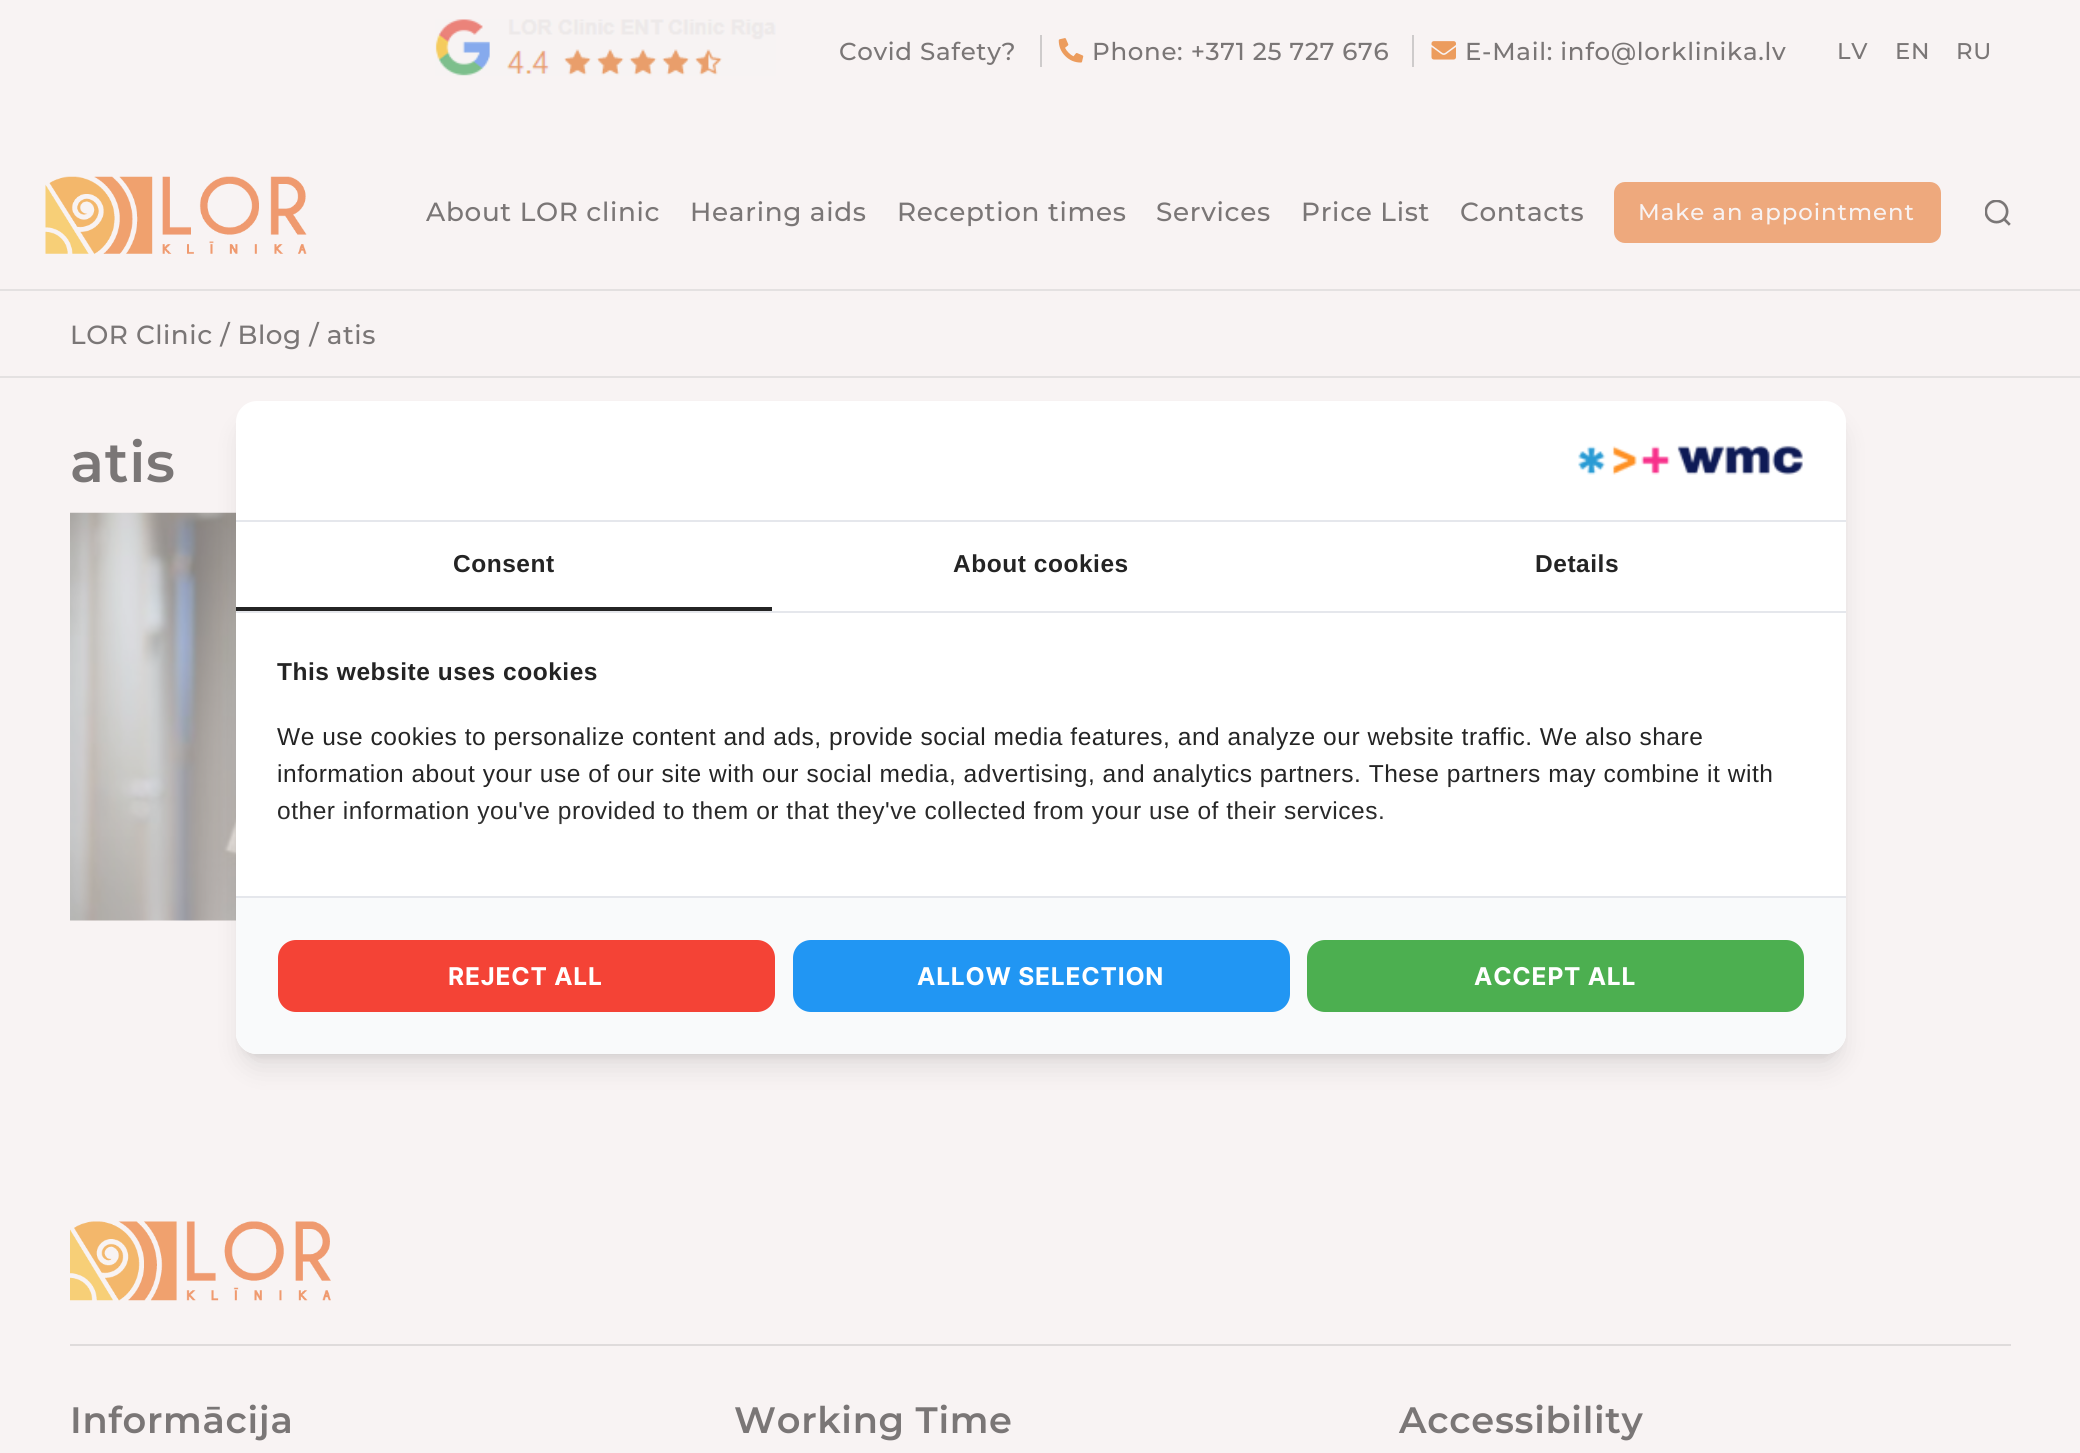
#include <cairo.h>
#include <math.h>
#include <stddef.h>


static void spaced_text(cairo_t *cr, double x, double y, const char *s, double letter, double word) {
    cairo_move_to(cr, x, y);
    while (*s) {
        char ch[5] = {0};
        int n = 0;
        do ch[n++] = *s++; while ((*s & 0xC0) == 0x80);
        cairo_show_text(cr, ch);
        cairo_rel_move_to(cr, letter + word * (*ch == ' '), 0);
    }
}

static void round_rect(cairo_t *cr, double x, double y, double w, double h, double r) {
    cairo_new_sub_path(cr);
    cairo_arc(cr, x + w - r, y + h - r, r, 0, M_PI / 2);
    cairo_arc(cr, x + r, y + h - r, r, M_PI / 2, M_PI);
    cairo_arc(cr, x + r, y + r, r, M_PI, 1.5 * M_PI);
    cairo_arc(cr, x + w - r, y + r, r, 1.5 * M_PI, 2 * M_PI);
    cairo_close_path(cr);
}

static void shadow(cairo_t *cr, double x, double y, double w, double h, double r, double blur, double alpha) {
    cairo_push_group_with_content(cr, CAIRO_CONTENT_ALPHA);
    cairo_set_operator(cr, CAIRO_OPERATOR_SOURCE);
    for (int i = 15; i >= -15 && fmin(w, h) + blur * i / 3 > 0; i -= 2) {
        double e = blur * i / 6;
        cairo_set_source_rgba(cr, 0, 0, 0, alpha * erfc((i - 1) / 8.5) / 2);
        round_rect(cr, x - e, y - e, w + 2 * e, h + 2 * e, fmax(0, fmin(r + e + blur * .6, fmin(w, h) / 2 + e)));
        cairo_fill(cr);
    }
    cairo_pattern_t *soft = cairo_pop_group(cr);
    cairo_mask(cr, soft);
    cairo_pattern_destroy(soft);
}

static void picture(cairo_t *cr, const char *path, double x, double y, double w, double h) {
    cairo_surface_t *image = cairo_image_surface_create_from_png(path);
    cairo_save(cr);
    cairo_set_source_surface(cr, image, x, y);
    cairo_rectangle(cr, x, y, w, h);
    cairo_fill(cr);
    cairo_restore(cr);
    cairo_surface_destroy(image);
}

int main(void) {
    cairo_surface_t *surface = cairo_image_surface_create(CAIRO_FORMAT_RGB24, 2080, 1453);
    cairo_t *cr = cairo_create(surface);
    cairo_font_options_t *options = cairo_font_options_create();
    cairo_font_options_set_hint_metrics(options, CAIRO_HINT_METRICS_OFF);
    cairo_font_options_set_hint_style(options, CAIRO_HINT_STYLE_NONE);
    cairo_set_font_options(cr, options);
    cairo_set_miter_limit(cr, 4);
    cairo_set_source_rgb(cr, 0.969, 0.953, 0.953);
    cairo_paint(cr);
    picture(cr, "img1.png", 435, 19, 341, 57);
    cairo_set_source_rgb(cr, 0.808, 0.796, 0.796);
    cairo_rectangle(cr, 1040, 35, 2, 32);
    cairo_fill(cr);
    cairo_select_font_face(cr, "Montserrat Medium", CAIRO_FONT_SLANT_NORMAL, CAIRO_FONT_WEIGHT_NORMAL);
    cairo_set_font_size(cr, 24.5);
    cairo_set_source_rgb(cr, 0.478, 0.463, 0.463);
    spaced_text(cr, 839, 60, "Covid Safety?", 0.7, 0);
    cairo_set_source_rgb(cr, 0.808, 0.796, 0.796);
    cairo_rectangle(cr, 1412, 35, 2, 32);
    cairo_fill(cr);
    picture(cr, "img2.png", 1058, 38, 26, 25);
    cairo_set_source_rgb(cr, 0.478, 0.463, 0.463);
    spaced_text(cr, 1092, 60, "Phone: +371 25 727 676", 0.7, 0);
    picture(cr, "img3.png", 1431, 41, 25, 19);
    spaced_text(cr, 1465, 60, "E-Mail: info@lorklinika.lv", 0.7, 0);
    cairo_set_font_size(cr, 22.75);
    spaced_text(cr, 1837, 59, "LV", 0.7, 0);
    spaced_text(cr, 1895, 59, "EN", 0.7, 0);
    spaced_text(cr, 1956, 59, "RU", 0.7, 0);
    picture(cr, "img4.png", 45, 176, 262, 78);
    cairo_set_font_size(cr, 26.25);
    spaced_text(cr, 426, 221, "About LOR clinic", 0.7, 0);
    spaced_text(cr, 690, 221, "Hearing aids", 0.7, 0);
    spaced_text(cr, 897, 221, "Reception times", 0.7, 0);
    spaced_text(cr, 1156, 221, "Services", 0.7, 0);
    spaced_text(cr, 1301, 221, "Price List", 0.7, 0);
    spaced_text(cr, 1460, 221, "Contacts", 0.7, 0);
    cairo_set_source_rgb(cr, 0.933, 0.663, 0.49);
    round_rect(cr, 1614, 182, 327, 61, 11);
    cairo_fill(cr);
    cairo_set_font_size(cr, 22.75);
    cairo_set_source_rgb(cr, 0.969, 0.953, 0.953);
    spaced_text(cr, 1638, 220, "Make an appointment", 1, 0);
    picture(cr, "img5.png", 1985, 200, 26, 26);
    cairo_set_source_rgb(cr, 0.894, 0.882, 0.882);
    cairo_rectangle(cr, 0, 289, 2080, 2);
    cairo_fill(cr);
    cairo_rectangle(cr, 0, 376, 2080, 2);
    cairo_fill(cr);
    cairo_set_font_size(cr, 26.25);
    cairo_set_source_rgb(cr, 0.478, 0.463, 0.463);
    spaced_text(cr, 70, 344, "LOR Clinic / Blog / atis", 0.53, 0);
    cairo_select_font_face(cr, "Montserrat SemiBold", CAIRO_FONT_SLANT_NORMAL, CAIRO_FONT_WEIGHT_NORMAL);
    cairo_set_font_size(cr, 56);
    spaced_text(cr, 70, 482, "atis", 0.7, 0);
    picture(cr, "img6.png", 70, 512, 166, 409);
    cairo_set_source_rgb(cr, 0, 0, 0);
    shadow(cr, 243, 415, 1596, 639, 14, 5, 0.1);
    shadow(cr, 242, 424, 1599, 642, 16, 13, 0.1);
    cairo_set_source_rgb(cr, 1, 1, 1);
    round_rect(cr, 236, 401, 1610, 653, 21);
    cairo_fill(cr);
    cairo_set_source_rgb(cr, 0.898, 0.906, 0.922);
    cairo_rectangle(cr, 236, 520, 1610, 2);
    cairo_fill(cr);
    picture(cr, "img7.png", 1578, 445, 225, 30);
    cairo_rectangle(cr, 236, 611, 1610, 2);
    cairo_fill(cr);
    cairo_set_source_rgb(cr, 0.141, 0.141, 0.141);
    cairo_rectangle(cr, 236, 607, 536, 4);
    cairo_fill(cr);
    cairo_select_font_face(cr, "Liberation Sans", CAIRO_FONT_SLANT_NORMAL, CAIRO_FONT_WEIGHT_BOLD);
    cairo_set_font_size(cr, 24.5);
    spaced_text(cr, 453, 572, "Consent", 0.53, 0);
    spaced_text(cr, 953, 572, "About cookies", 0.53, 0);
    spaced_text(cr, 1535, 572, "Details", 0.53, 0);
    spaced_text(cr, 277, 680, "This website uses cookies", 0.53, 0);
    cairo_select_font_face(cr, "Liberation Sans", CAIRO_FONT_SLANT_NORMAL, CAIRO_FONT_WEIGHT_NORMAL);
    spaced_text(cr, 277, 745, "We use cookies to personalize content and ads, provide social media features, and analyze our website traffic. We also share", 0.53, 0);
    spaced_text(cr, 277, 782, "information about your use of our site with our social media, advertising, and analytics partners. These partners may combine it with", 0.53, 0);
    spaced_text(cr, 277, 819, "other information you've provided to them or that they've collected from your use of their services.", 0.53, 0);
    cairo_save(cr);
    round_rect(cr, 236, 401, 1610, 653, 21);
    cairo_clip(cr);
    cairo_set_source_rgb(cr, 1, 1, 1);
    shadow(cr, 222, 847, 1638, 186, 0, 17.5, 1);
    cairo_restore(cr);
    cairo_set_source_rgb(cr, 0.976, 0.98, 0.984);
    cairo_new_path(cr);
    cairo_move_to(cr, 236, 896);
    cairo_line_to(cr, 1846, 896);
    cairo_line_to(cr, 1846, 1033);
    cairo_curve_to(cr, 1846, 1044.5, 1836.5, 1054, 1825, 1054);
    cairo_line_to(cr, 257, 1054);
    cairo_curve_to(cr, 245.5, 1054, 236, 1044.5, 236, 1033);
    cairo_close_path(cr);
    cairo_fill(cr);
    cairo_set_source_rgb(cr, 0.898, 0.906, 0.922);
    cairo_rectangle(cr, 236, 896, 1610, 2);
    cairo_fill(cr);
    cairo_set_source_rgb(cr, 0.957, 0.263, 0.212);
    round_rect(cr, 278, 940, 497, 72, 18);
    cairo_fill(cr);
    cairo_select_font_face(cr, "Inter", CAIRO_FONT_SLANT_NORMAL, CAIRO_FONT_WEIGHT_BOLD);
    cairo_set_source_rgb(cr, 1, 1, 1);
    spaced_text(cr, 448, 985, "REJECT ALL", 0.8, 0);
    cairo_set_source_rgb(cr, 0.129, 0.588, 0.953);
    round_rect(cr, 793, 940, 497, 72, 18);
    cairo_fill(cr);
    cairo_set_source_rgb(cr, 1, 1, 1);
    spaced_text(cr, 917, 985, "ALLOW SELECTION", 0.8, 0);
    cairo_set_source_rgb(cr, 0.298, 0.686, 0.314);
    round_rect(cr, 1307, 940, 497, 72, 18);
    cairo_fill(cr);
    cairo_set_source_rgb(cr, 1, 1, 1);
    spaced_text(cr, 1474, 985, "ACCEPT ALL", 0.8, 0);
    picture(cr, "img8.png", 70, 1221, 261, 80);
    cairo_set_source_rgb(cr, 0.875, 0.859, 0.859);
    cairo_rectangle(cr, 70, 1344, 1941, 2);
    cairo_fill(cr);
    cairo_select_font_face(cr, "Montserrat SemiBold", CAIRO_FONT_SLANT_NORMAL, CAIRO_FONT_WEIGHT_NORMAL);
    cairo_set_font_size(cr, 36.75);
    cairo_set_source_rgb(cr, 0.478, 0.463, 0.463);
    spaced_text(cr, 70, 1433, "Informācija", 0.7, 0);
    spaced_text(cr, 734, 1433, "Working Time", 0.7, 0);
    spaced_text(cr, 1399, 1433, "Accessibility", 0.7, 0);
    cairo_surface_write_to_png(surface, "page.png");
    cairo_font_options_destroy(options);
    cairo_destroy(cr);
    cairo_surface_destroy(surface);
    return 0;
}
